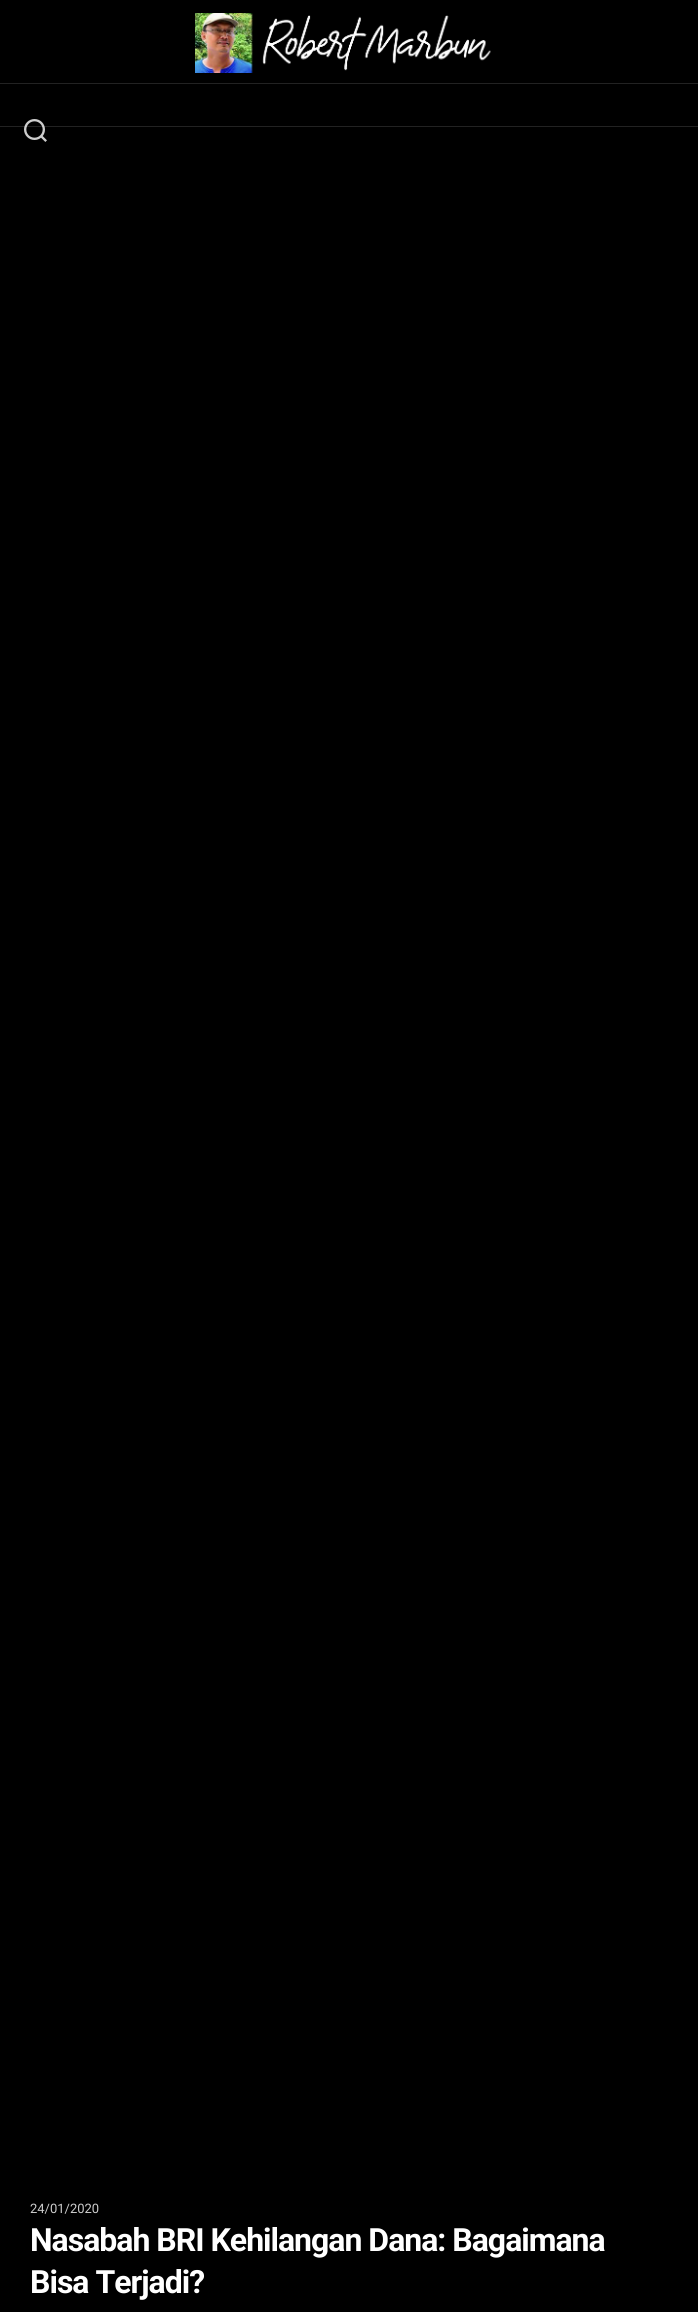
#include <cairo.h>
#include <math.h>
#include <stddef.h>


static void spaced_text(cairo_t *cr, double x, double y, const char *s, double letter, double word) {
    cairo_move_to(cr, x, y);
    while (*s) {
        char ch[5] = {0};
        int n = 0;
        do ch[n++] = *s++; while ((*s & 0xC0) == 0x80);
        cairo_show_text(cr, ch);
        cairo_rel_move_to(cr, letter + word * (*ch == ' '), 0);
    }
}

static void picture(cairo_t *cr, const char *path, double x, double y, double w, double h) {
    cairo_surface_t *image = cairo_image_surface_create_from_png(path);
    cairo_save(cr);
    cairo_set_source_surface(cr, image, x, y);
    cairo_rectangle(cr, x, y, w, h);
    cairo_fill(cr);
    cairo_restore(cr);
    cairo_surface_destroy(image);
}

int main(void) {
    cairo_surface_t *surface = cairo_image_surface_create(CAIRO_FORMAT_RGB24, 698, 2312);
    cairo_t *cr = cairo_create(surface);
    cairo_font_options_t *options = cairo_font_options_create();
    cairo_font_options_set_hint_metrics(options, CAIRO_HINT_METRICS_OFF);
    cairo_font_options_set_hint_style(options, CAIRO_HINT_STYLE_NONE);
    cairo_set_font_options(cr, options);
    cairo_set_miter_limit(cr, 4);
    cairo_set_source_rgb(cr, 0, 0, 0);
    cairo_paint(cr);
    cairo_set_source_rgb(cr, 0.133, 0.133, 0.133);
    cairo_rectangle(cr, 0, 83, 698, 1);
    cairo_fill(cr);
    picture(cr, "img1.png", 195, 13, 296, 60);
    cairo_rectangle(cr, 0, 126, 698, 1);
    cairo_fill(cr);
    picture(cr, "img2.png", 24, 119, 23, 23);
    cairo_select_font_face(cr, "Roboto", CAIRO_FONT_SLANT_NORMAL, CAIRO_FONT_WEIGHT_NORMAL);
    cairo_set_font_size(cr, 13);
    cairo_set_source_rgb(cr, 0.8, 0.8, 0.8);
    cairo_move_to(cr, 30, 2213);
    cairo_show_text(cr, "24/01/2020");
    cairo_select_font_face(cr, "Roboto", CAIRO_FONT_SLANT_NORMAL, CAIRO_FONT_WEIGHT_BOLD);
    cairo_set_font_size(cr, 32);
    cairo_set_source_rgb(cr, 1, 1, 1);
    spaced_text(cr, 30, 2251, "Nasabah BRI Kehilangan Dana: Bagaimana", -1, 0);
    spaced_text(cr, 30, 2293, "Bisa Terjadi?", -1, 0);
    cairo_surface_write_to_png(surface, "page.png");
    cairo_font_options_destroy(options);
    cairo_destroy(cr);
    cairo_surface_destroy(surface);
    return 0;
}
